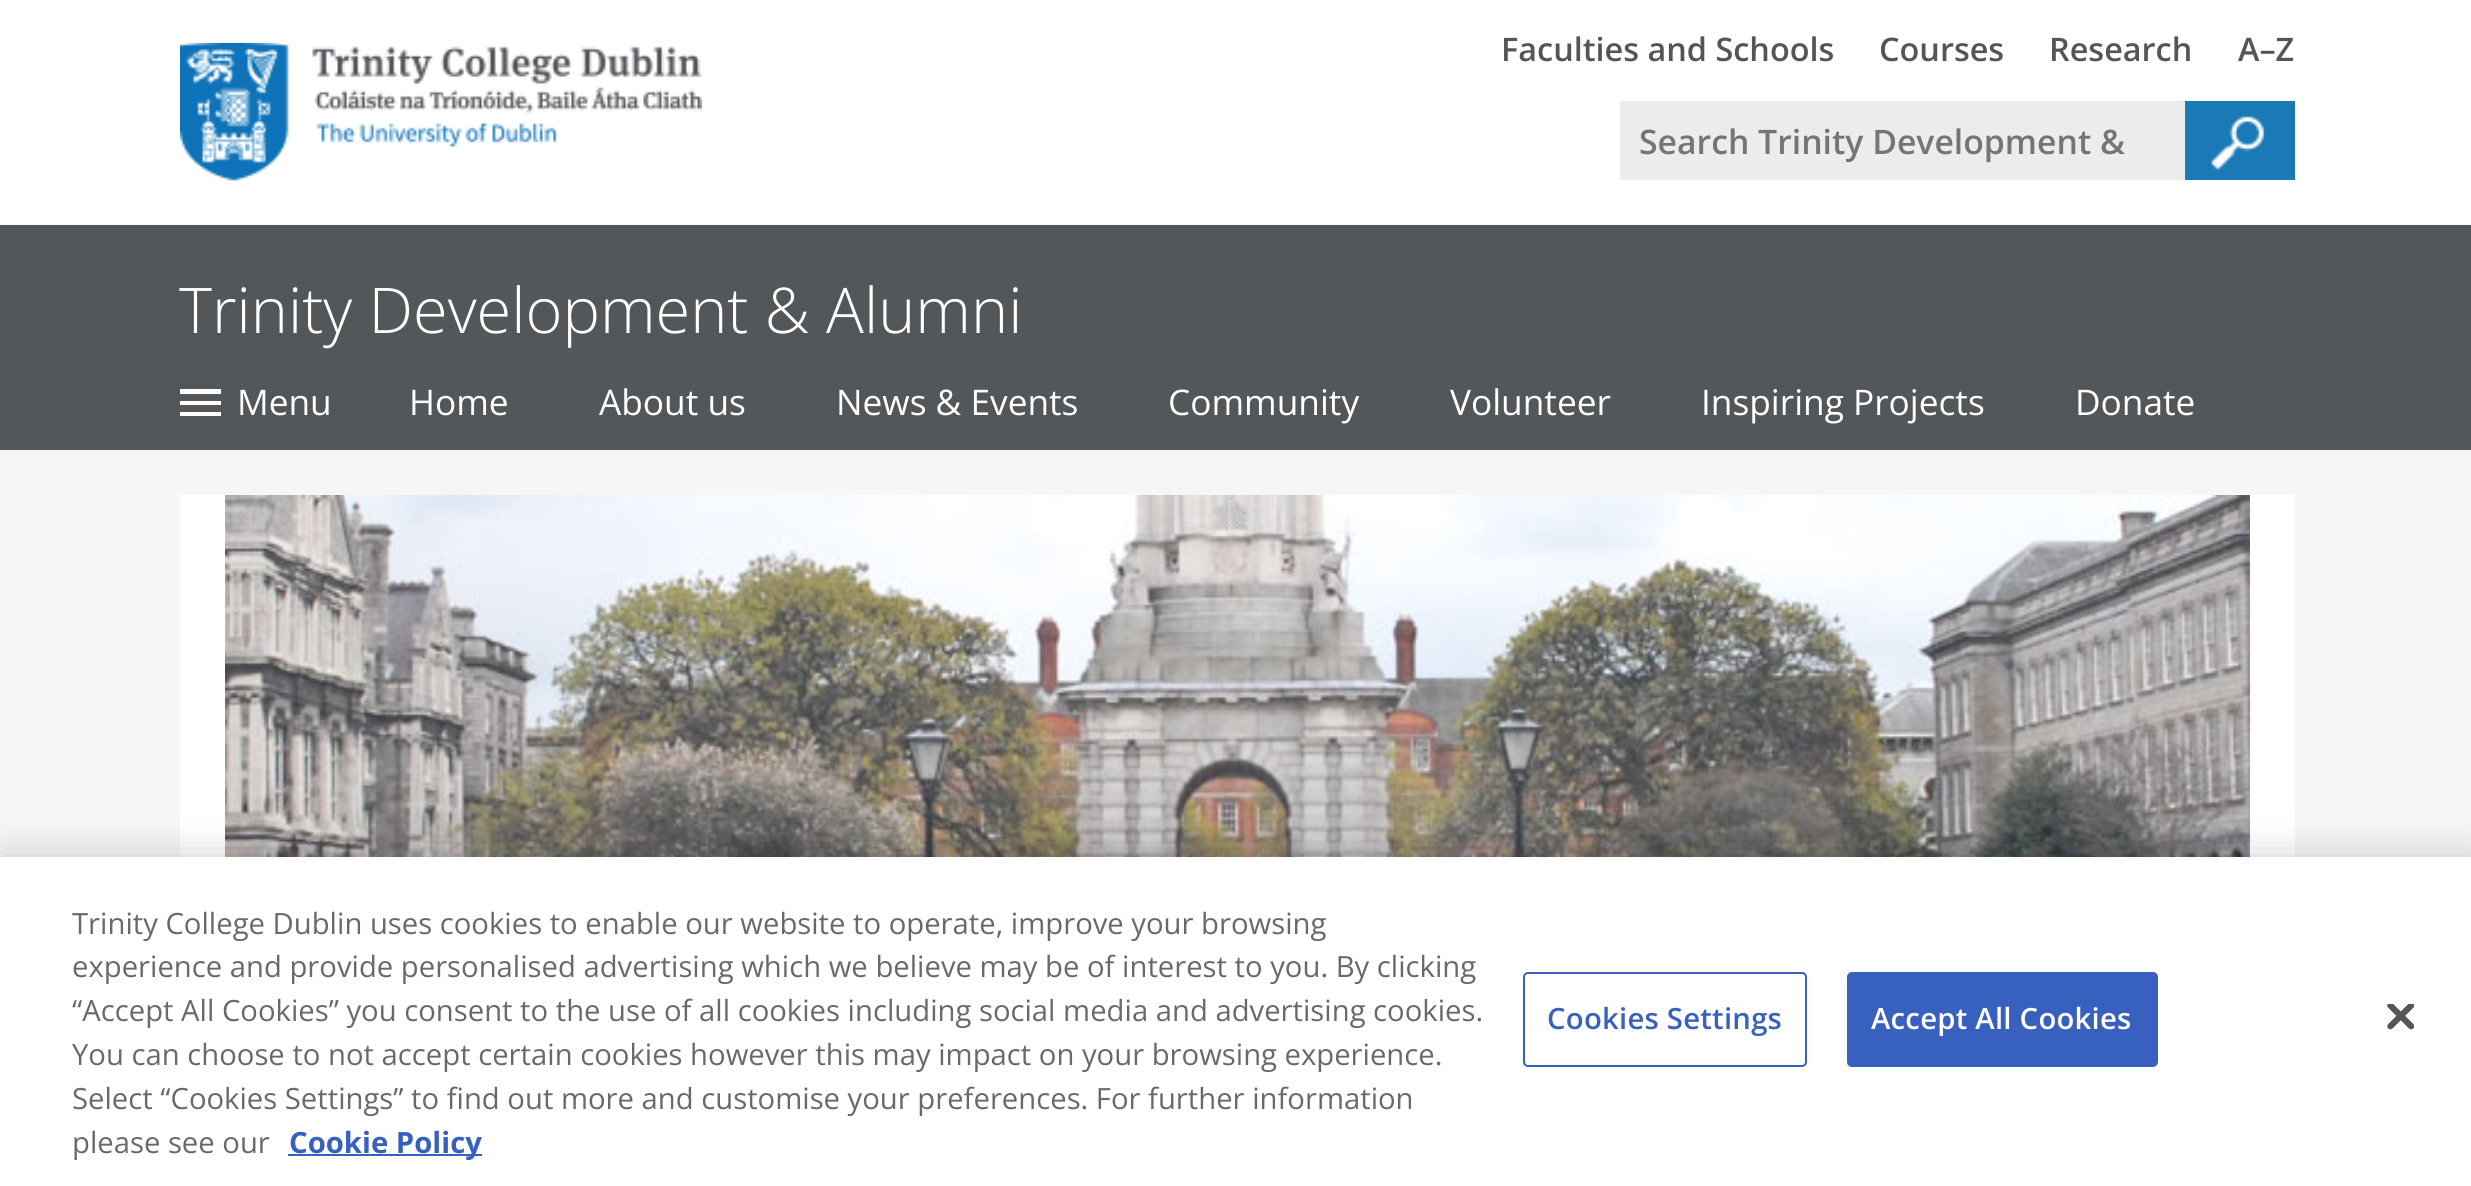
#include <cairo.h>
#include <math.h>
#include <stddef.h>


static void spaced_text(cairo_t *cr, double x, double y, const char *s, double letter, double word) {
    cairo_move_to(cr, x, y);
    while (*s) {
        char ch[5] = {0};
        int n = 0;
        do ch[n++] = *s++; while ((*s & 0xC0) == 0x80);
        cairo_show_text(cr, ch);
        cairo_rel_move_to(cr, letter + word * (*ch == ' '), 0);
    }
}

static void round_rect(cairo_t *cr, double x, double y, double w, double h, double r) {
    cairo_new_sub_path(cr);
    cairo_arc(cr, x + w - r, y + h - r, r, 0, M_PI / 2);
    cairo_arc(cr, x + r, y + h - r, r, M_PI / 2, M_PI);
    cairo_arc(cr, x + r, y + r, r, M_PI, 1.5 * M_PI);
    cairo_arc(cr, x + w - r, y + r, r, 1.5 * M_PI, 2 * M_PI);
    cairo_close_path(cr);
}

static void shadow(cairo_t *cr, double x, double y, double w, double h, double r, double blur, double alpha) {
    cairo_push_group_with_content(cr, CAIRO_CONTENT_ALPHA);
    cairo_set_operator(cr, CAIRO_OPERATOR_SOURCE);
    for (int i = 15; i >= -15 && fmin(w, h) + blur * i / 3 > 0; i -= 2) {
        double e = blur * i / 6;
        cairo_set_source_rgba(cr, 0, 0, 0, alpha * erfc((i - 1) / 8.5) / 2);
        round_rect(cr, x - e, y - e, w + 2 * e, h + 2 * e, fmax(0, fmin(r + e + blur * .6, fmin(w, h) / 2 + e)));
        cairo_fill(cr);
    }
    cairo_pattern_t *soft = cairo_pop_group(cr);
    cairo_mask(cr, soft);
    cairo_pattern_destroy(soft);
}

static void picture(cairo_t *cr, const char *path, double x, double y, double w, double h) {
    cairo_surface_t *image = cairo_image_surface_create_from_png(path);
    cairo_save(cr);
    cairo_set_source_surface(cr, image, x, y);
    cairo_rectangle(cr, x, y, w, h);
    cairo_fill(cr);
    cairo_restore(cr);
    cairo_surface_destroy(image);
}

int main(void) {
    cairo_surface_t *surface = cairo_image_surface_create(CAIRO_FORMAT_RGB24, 2471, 1186);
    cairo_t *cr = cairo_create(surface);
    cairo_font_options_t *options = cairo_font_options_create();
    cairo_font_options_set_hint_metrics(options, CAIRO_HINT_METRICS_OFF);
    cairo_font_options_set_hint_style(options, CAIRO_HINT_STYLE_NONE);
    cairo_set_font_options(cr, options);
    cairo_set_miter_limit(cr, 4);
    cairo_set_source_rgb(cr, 1, 1, 1);
    cairo_paint(cr);
    picture(cr, "img1.png", 180, 42, 522, 139);
    cairo_select_font_face(cr, "Open Sans SemiBold", CAIRO_FONT_SLANT_NORMAL, CAIRO_FONT_WEIGHT_NORMAL);
    cairo_set_font_size(cr, 32.4);
    cairo_set_source_rgb(cr, 0.333, 0.333, 0.333);
    cairo_move_to(cr, 1501, 61);
    cairo_show_text(cr, "Faculties and Schools");
    cairo_move_to(cr, 1879, 61);
    cairo_show_text(cr, "Courses");
    cairo_move_to(cr, 2049, 61);
    cairo_show_text(cr, "Research");
    cairo_move_to(cr, 2238, 61);
    cairo_show_text(cr, "A–Z");
    cairo_set_source_rgb(cr, 0.925, 0.925, 0.925);
    cairo_rectangle(cr, 1620, 101, 565, 79);
    cairo_fill(cr);
    cairo_set_font_size(cr, 33.75);
    cairo_set_source_rgb(cr, 0.459, 0.459, 0.459);
    cairo_move_to(cr, 1639, 154);
    cairo_show_text(cr, "Search Trinity Development &");
    cairo_set_source_rgb(cr, 0.106, 0.475, 0.718);
    cairo_rectangle(cr, 2185, 101, 110, 79);
    cairo_fill(cr);
    picture(cr, "img2.png", 2211, 116, 54, 54);
    cairo_set_source_rgb(cr, 0.329, 0.341, 0.349);
    cairo_rectangle(cr, 0, 225, 2471, 225);
    cairo_fill(cr);
    cairo_select_font_face(cr, "Open Sans Light", CAIRO_FONT_SLANT_NORMAL, CAIRO_FONT_WEIGHT_NORMAL);
    cairo_set_font_size(cr, 63);
    cairo_set_source_rgb(cr, 1, 1, 1);
    cairo_move_to(cr, 179, 333);
    cairo_show_text(cr, "Trinity Development & Alumni");
    cairo_rectangle(cr, 180, 389, 41, 5);
    cairo_fill(cr);
    cairo_rectangle(cr, 180, 401, 41, 4);
    cairo_fill(cr);
    cairo_rectangle(cr, 180, 412, 41, 4);
    cairo_fill(cr);
    cairo_select_font_face(cr, "Open Sans", CAIRO_FONT_SLANT_NORMAL, CAIRO_FONT_WEIGHT_NORMAL);
    cairo_set_font_size(cr, 35.25);
    cairo_move_to(cr, 237, 415);
    cairo_show_text(cr, "Menu");
    cairo_move_to(cr, 409, 415);
    cairo_show_text(cr, "Home");
    cairo_move_to(cr, 599, 415);
    cairo_show_text(cr, "About us");
    cairo_move_to(cr, 836, 415);
    cairo_show_text(cr, "News & Events");
    cairo_move_to(cr, 1168, 415);
    cairo_show_text(cr, "Community");
    cairo_move_to(cr, 1450, 415);
    cairo_show_text(cr, "Volunteer");
    cairo_move_to(cr, 1701, 415);
    cairo_show_text(cr, "Inspiring Projects");
    cairo_move_to(cr, 2075, 415);
    cairo_show_text(cr, "Donate");
    cairo_set_source_rgb(cr, 0.961, 0.961, 0.961);
    cairo_rectangle(cr, 0, 450, 2471, 407);
    cairo_fill(cr);
    cairo_set_source_rgb(cr, 1, 1, 1);
    cairo_rectangle(cr, 180, 495, 2115, 362);
    cairo_fill(cr);
    picture(cr, "img3.png", 225, 495, 2025, 362);
    cairo_set_source_rgb(cr, 0, 0, 0);
    shadow(cr, 0, 857, 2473, 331, 0, 20, 0.2);
    cairo_set_source_rgb(cr, 1, 1, 1);
    cairo_rectangle(cr, 0, 857, 2471, 329);
    cairo_fill(cr);
    cairo_set_font_size(cr, 29.25);
    cairo_set_source_rgb(cr, 0.412, 0.412, 0.412);
    cairo_move_to(cr, 72, 934);
    cairo_show_text(cr, "Trinity College Dublin uses cookies to enable our website to operate, improve your browsing");
    cairo_move_to(cr, 72, 977);
    cairo_show_text(cr, "experience and provide personalised advertising which we believe may be of interest to you. By clicking");
    cairo_move_to(cr, 72, 1021);
    cairo_show_text(cr, "“Accept All Cookies” you consent to the use of all cookies including social media and advertising cookies.");
    cairo_move_to(cr, 72, 1065);
    cairo_show_text(cr, "You can choose to not accept certain cookies however this may impact on your browsing experience.");
    cairo_move_to(cr, 72, 1109);
    cairo_show_text(cr, "Select “Cookies Settings” to find out more and customise your preferences. For further information");
    cairo_move_to(cr, 72, 1153);
    cairo_show_text(cr, "please see our");
    cairo_set_source_rgb(cr, 0.22, 0.376, 0.745);
    cairo_rectangle(cr, 288, 1154, 194, 2);
    cairo_fill(cr);
    cairo_select_font_face(cr, "Open Sans", CAIRO_FONT_SLANT_NORMAL, CAIRO_FONT_WEIGHT_BOLD);
    cairo_move_to(cr, 289, 1153);
    cairo_show_text(cr, "Cookie Policy");
    round_rect(cr, 1524, 973, 282, 93, 4);
    cairo_stroke(cr);
    cairo_select_font_face(cr, "Open Sans SemiBold", CAIRO_FONT_SLANT_NORMAL, CAIRO_FONT_WEIGHT_NORMAL);
    spaced_text(cr, 1547, 1029, "Cookies Settings", 0.25, 0);
    round_rect(cr, 1848, 973, 309, 93, 4);
    cairo_fill_preserve(cr);
    cairo_stroke(cr);
    cairo_set_source_rgb(cr, 1, 1, 1);
    spaced_text(cr, 1871, 1029, "Accept All Cookies", 0.25, 0);
    picture(cr, "img4.png", 2387, 1004, 27, 26);
    cairo_surface_write_to_png(surface, "page.png");
    cairo_font_options_destroy(options);
    cairo_destroy(cr);
    cairo_surface_destroy(surface);
    return 0;
}
